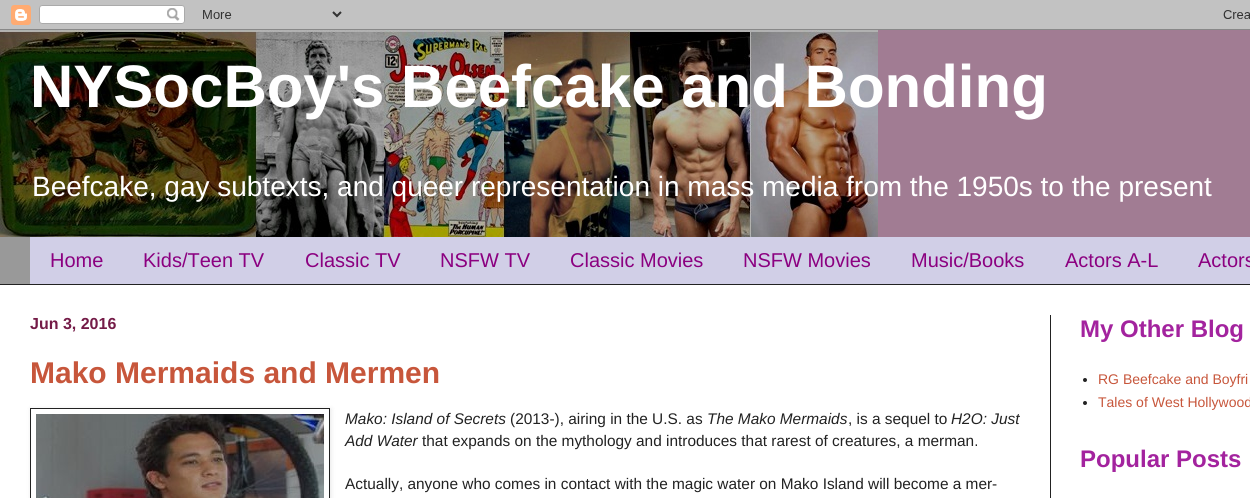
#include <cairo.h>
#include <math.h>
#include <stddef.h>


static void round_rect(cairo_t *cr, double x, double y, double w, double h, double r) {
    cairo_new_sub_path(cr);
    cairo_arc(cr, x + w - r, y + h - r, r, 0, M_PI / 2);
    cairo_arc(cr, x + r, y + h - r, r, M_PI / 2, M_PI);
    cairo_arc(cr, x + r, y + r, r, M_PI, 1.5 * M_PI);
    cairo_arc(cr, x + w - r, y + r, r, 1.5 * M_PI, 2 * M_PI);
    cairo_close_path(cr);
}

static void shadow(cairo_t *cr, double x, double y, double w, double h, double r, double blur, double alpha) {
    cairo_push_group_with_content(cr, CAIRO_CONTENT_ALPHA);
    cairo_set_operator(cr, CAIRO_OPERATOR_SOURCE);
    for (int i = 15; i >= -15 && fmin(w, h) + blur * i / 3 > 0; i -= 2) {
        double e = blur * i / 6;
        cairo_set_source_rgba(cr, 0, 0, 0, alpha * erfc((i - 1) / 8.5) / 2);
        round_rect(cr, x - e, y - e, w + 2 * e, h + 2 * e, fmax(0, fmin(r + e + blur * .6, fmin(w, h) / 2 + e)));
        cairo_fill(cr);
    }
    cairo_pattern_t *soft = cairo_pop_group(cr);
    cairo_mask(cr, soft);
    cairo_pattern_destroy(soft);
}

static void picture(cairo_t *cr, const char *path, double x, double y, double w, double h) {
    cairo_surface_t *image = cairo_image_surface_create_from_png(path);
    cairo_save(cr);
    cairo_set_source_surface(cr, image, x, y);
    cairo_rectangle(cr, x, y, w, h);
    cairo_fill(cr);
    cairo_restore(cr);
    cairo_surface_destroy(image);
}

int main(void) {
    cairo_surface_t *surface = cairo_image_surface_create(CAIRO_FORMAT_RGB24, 1250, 498);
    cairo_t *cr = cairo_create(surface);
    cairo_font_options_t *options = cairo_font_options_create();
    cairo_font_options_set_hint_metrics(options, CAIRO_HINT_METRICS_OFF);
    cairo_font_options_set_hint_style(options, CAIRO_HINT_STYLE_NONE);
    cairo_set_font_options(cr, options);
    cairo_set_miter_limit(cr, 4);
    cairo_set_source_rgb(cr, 0.6, 0.6, 0.6);
    cairo_paint(cr);
    picture(cr, "img1.png", 0, 0, 1250, 30);
    cairo_set_source_rgb(cr, 0.631, 0.486, 0.576);
    cairo_rectangle(cr, 878, 30, 372, 207);
    cairo_fill(cr);
    picture(cr, "img2.png", 0, 30, 878, 207);
    cairo_select_font_face(cr, "Liberation Sans", CAIRO_FONT_SLANT_NORMAL, CAIRO_FONT_WEIGHT_BOLD);
    cairo_set_font_size(cr, 60);
    cairo_set_source_rgb(cr, 1, 1, 1);
    cairo_move_to(cr, 30, 107);
    cairo_show_text(cr, "NYSocBoy's Beefcake and Bonding");
    cairo_select_font_face(cr, "Liberation Sans", CAIRO_FONT_SLANT_NORMAL, CAIRO_FONT_WEIGHT_NORMAL);
    cairo_set_font_size(cr, 28);
    cairo_move_to(cr, 32, 196);
    cairo_show_text(cr, "Beefcake, gay subtexts, and queer representation in mass media from the 1950s to the present");
    cairo_set_source_rgb(cr, 0.82, 0.812, 0.906);
    cairo_rectangle(cr, 30, 237, 1220, 47);
    cairo_fill(cr);
    cairo_set_font_size(cr, 20);
    cairo_set_source_rgb(cr, 0.545, 0, 0.502);
    cairo_move_to(cr, 50, 267);
    cairo_show_text(cr, "Home");
    cairo_move_to(cr, 143, 267);
    cairo_show_text(cr, "Kids/Teen TV");
    cairo_move_to(cr, 305, 267);
    cairo_show_text(cr, "Classic TV");
    cairo_move_to(cr, 440, 267);
    cairo_show_text(cr, "NSFW TV");
    cairo_move_to(cr, 570, 267);
    cairo_show_text(cr, "Classic Movies");
    cairo_move_to(cr, 743, 267);
    cairo_show_text(cr, "NSFW Movies");
    cairo_move_to(cr, 911, 267);
    cairo_show_text(cr, "Music/Books");
    cairo_move_to(cr, 1065, 267);
    cairo_show_text(cr, "Actors A-L");
    cairo_move_to(cr, 1198, 267);
    cairo_show_text(cr, "Actors");
    cairo_set_source_rgb(cr, 1, 1, 1);
    cairo_rectangle(cr, 0, 285, 1250, 213);
    cairo_fill(cr);
    cairo_set_source_rgb(cr, 0.133, 0.133, 0.133);
    cairo_rectangle(cr, 0, 284, 1250, 1);
    cairo_fill(cr);
    cairo_rectangle(cr, 1050, 315, 1, 183);
    cairo_fill(cr);
    cairo_select_font_face(cr, "Liberation Sans", CAIRO_FONT_SLANT_NORMAL, CAIRO_FONT_WEIGHT_BOLD);
    cairo_set_font_size(cr, 16);
    cairo_set_source_rgb(cr, 0.455, 0.106, 0.278);
    cairo_move_to(cr, 30, 329);
    cairo_show_text(cr, "Jun 3, 2016");
    cairo_set_font_size(cr, 30);
    cairo_set_source_rgb(cr, 0.78, 0.337, 0.231);
    cairo_move_to(cr, 30, 383);
    cairo_show_text(cr, "Mako Mermaids and Mermen");
    cairo_save(cr);
    cairo_set_fill_rule(cr, CAIRO_FILL_RULE_EVEN_ODD);
    cairo_new_path(cr);
    cairo_move_to(cr, 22, 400);
    cairo_line_to(cr, 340, 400);
    cairo_line_to(cr, 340, 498);
    cairo_line_to(cr, 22, 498);
    cairo_close_path(cr);
    cairo_move_to(cr, 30, 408);
    cairo_line_to(cr, 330, 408);
    cairo_line_to(cr, 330, 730);
    cairo_line_to(cr, 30, 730);
    cairo_close_path(cr);
    cairo_clip(cr);
    cairo_set_source_rgb(cr, 0, 0, 0);
    shadow(cr, 31, 409, 300, 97, 0, 2.5, 0.1);
    cairo_restore(cr);
    cairo_rectangle(cr, 30.5, 408.5, 299, 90);
    cairo_set_source_rgb(cr, 0.133, 0.133, 0.133);
    cairo_set_line_width(cr, 1);
    cairo_stroke(cr);
    picture(cr, "img3.png", 36, 414, 288, 84);
    cairo_select_font_face(cr, "Liberation Sans", CAIRO_FONT_SLANT_ITALIC, CAIRO_FONT_WEIGHT_NORMAL);
    cairo_set_font_size(cr, 15.4);
    cairo_move_to(cr, 345, 424);
    cairo_show_text(cr, "Mako: Island of Secrets");
    cairo_select_font_face(cr, "Liberation Sans", CAIRO_FONT_SLANT_NORMAL, CAIRO_FONT_WEIGHT_NORMAL);
    cairo_move_to(cr, 510, 424);
    cairo_show_text(cr, "(2013-), airing in the U.S. as");
    cairo_select_font_face(cr, "Liberation Sans", CAIRO_FONT_SLANT_ITALIC, CAIRO_FONT_WEIGHT_NORMAL);
    cairo_move_to(cr, 707, 424);
    cairo_show_text(cr, "The Mako Mermaids");
    cairo_select_font_face(cr, "Liberation Sans", CAIRO_FONT_SLANT_NORMAL, CAIRO_FONT_WEIGHT_NORMAL);
    cairo_move_to(cr, 848, 424);
    cairo_show_text(cr, ", is a sequel to");
    cairo_select_font_face(cr, "Liberation Sans", CAIRO_FONT_SLANT_ITALIC, CAIRO_FONT_WEIGHT_NORMAL);
    cairo_move_to(cr, 951, 424);
    cairo_show_text(cr, "H2O: Just");
    cairo_move_to(cr, 345, 446);
    cairo_show_text(cr, "Add Water");
    cairo_select_font_face(cr, "Liberation Sans", CAIRO_FONT_SLANT_NORMAL, CAIRO_FONT_WEIGHT_NORMAL);
    cairo_move_to(cr, 422, 446);
    cairo_show_text(cr, "that expands on the mythology and introduces that rarest of creatures, a merman.");
    cairo_move_to(cr, 345, 489);
    cairo_show_text(cr, "Actually, anyone who comes in contact with the magic water on Mako Island will become a mer-");
    cairo_select_font_face(cr, "Liberation Sans", CAIRO_FONT_SLANT_NORMAL, CAIRO_FONT_WEIGHT_BOLD);
    cairo_set_font_size(cr, 24);
    cairo_set_source_rgb(cr, 0.639, 0.137, 0.62);
    cairo_move_to(cr, 1080, 337);
    cairo_show_text(cr, "My Other Blog");
    cairo_set_source_rgb(cr, 0.133, 0.133, 0.133);
    cairo_new_path(cr);
    cairo_arc(cr, 1085, 380, 2, 0, 2 * M_PI);
    cairo_fill(cr);
    cairo_select_font_face(cr, "Liberation Sans", CAIRO_FONT_SLANT_NORMAL, CAIRO_FONT_WEIGHT_NORMAL);
    cairo_set_font_size(cr, 14);
    cairo_set_source_rgb(cr, 0.78, 0.337, 0.231);
    cairo_move_to(cr, 1098, 384);
    cairo_show_text(cr, "RG Beefcake and Boyfri");
    cairo_set_source_rgb(cr, 0.133, 0.133, 0.133);
    cairo_new_path(cr);
    cairo_arc(cr, 1085, 403, 2, 0, 2 * M_PI);
    cairo_fill(cr);
    cairo_set_source_rgb(cr, 0.78, 0.337, 0.231);
    cairo_move_to(cr, 1098, 407);
    cairo_show_text(cr, "Tales of West Hollywood");
    cairo_select_font_face(cr, "Liberation Sans", CAIRO_FONT_SLANT_NORMAL, CAIRO_FONT_WEIGHT_BOLD);
    cairo_set_font_size(cr, 24);
    cairo_set_source_rgb(cr, 0.639, 0.137, 0.62);
    cairo_move_to(cr, 1080, 467);
    cairo_show_text(cr, "Popular Posts");
    cairo_surface_write_to_png(surface, "page.png");
    cairo_font_options_destroy(options);
    cairo_destroy(cr);
    cairo_surface_destroy(surface);
    return 0;
}
